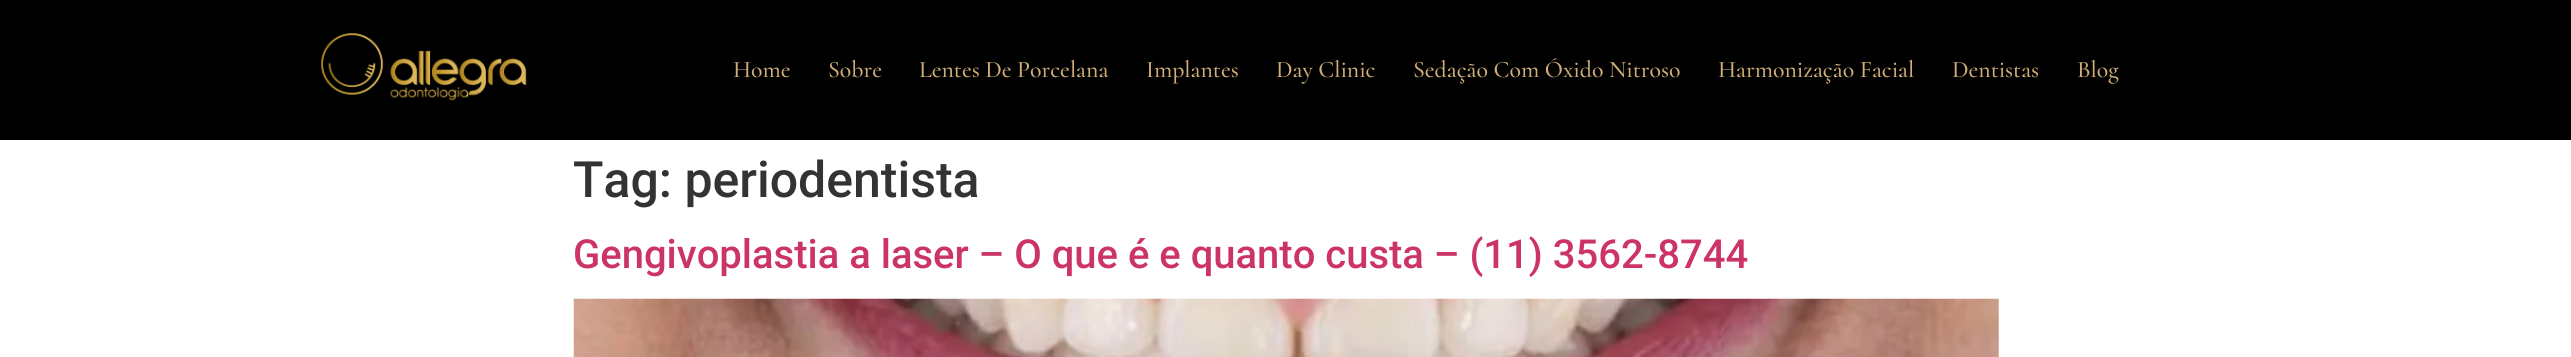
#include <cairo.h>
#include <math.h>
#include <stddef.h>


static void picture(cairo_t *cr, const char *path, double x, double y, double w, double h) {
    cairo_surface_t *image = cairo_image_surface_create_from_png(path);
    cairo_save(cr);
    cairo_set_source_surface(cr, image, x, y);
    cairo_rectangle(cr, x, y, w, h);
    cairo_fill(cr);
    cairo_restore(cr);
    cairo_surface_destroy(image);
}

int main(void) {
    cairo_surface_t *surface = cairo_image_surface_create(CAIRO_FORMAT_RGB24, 2571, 357);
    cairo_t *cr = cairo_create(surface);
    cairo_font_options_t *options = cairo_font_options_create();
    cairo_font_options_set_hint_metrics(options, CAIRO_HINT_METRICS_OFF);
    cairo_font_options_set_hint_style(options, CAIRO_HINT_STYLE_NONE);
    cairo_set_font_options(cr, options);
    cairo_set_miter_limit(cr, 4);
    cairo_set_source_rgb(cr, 1, 1, 1);
    cairo_paint(cr);
    cairo_set_source_rgb(cr, 0, 0, 0);
    cairo_rectangle(cr, 0, 0, 2571, 140);
    cairo_fill(cr);
    picture(cr, "img1.png", 321, 33, 206, 68);
    cairo_select_font_face(cr, "Cormorant Medium", CAIRO_FONT_SLANT_NORMAL, CAIRO_FONT_WEIGHT_NORMAL);
    cairo_set_font_size(cr, 23.75);
    cairo_set_source_rgb(cr, 0.82, 0.686, 0.467);
    cairo_move_to(cr, 733, 77);
    cairo_show_text(cr, "Home");
    cairo_move_to(cr, 828, 77);
    cairo_show_text(cr, "Sobre");
    cairo_move_to(cr, 919, 77);
    cairo_show_text(cr, "Lentes De Porcelana");
    cairo_move_to(cr, 1146, 77);
    cairo_show_text(cr, "Implantes");
    cairo_move_to(cr, 1276, 77);
    cairo_show_text(cr, "Day Clinic");
    cairo_move_to(cr, 1413, 77);
    cairo_show_text(cr, "Sedação Com Óxido Nitroso");
    cairo_move_to(cr, 1718, 77);
    cairo_show_text(cr, "Harmonização Facial");
    cairo_move_to(cr, 1952, 77);
    cairo_show_text(cr, "Dentistas");
    cairo_move_to(cr, 2077, 77);
    cairo_show_text(cr, "Blog");
    cairo_select_font_face(cr, "Roboto Medium", CAIRO_FONT_SLANT_NORMAL, CAIRO_FONT_WEIGHT_NORMAL);
    cairo_set_font_size(cr, 50);
    cairo_set_source_rgb(cr, 0.2, 0.2, 0.2);
    cairo_move_to(cr, 573, 197);
    cairo_show_text(cr, "Tag: periodentista");
    cairo_set_font_size(cr, 40);
    cairo_set_source_rgb(cr, 0.8, 0.2, 0.4);
    cairo_move_to(cr, 573, 268);
    cairo_show_text(cr, "Gengivoplastia a laser – O que é e quanto custa – (11) 3562-8744");
    picture(cr, "img2.png", 573, 298, 1426, 59);
    cairo_surface_write_to_png(surface, "page.png");
    cairo_font_options_destroy(options);
    cairo_destroy(cr);
    cairo_surface_destroy(surface);
    return 0;
}
